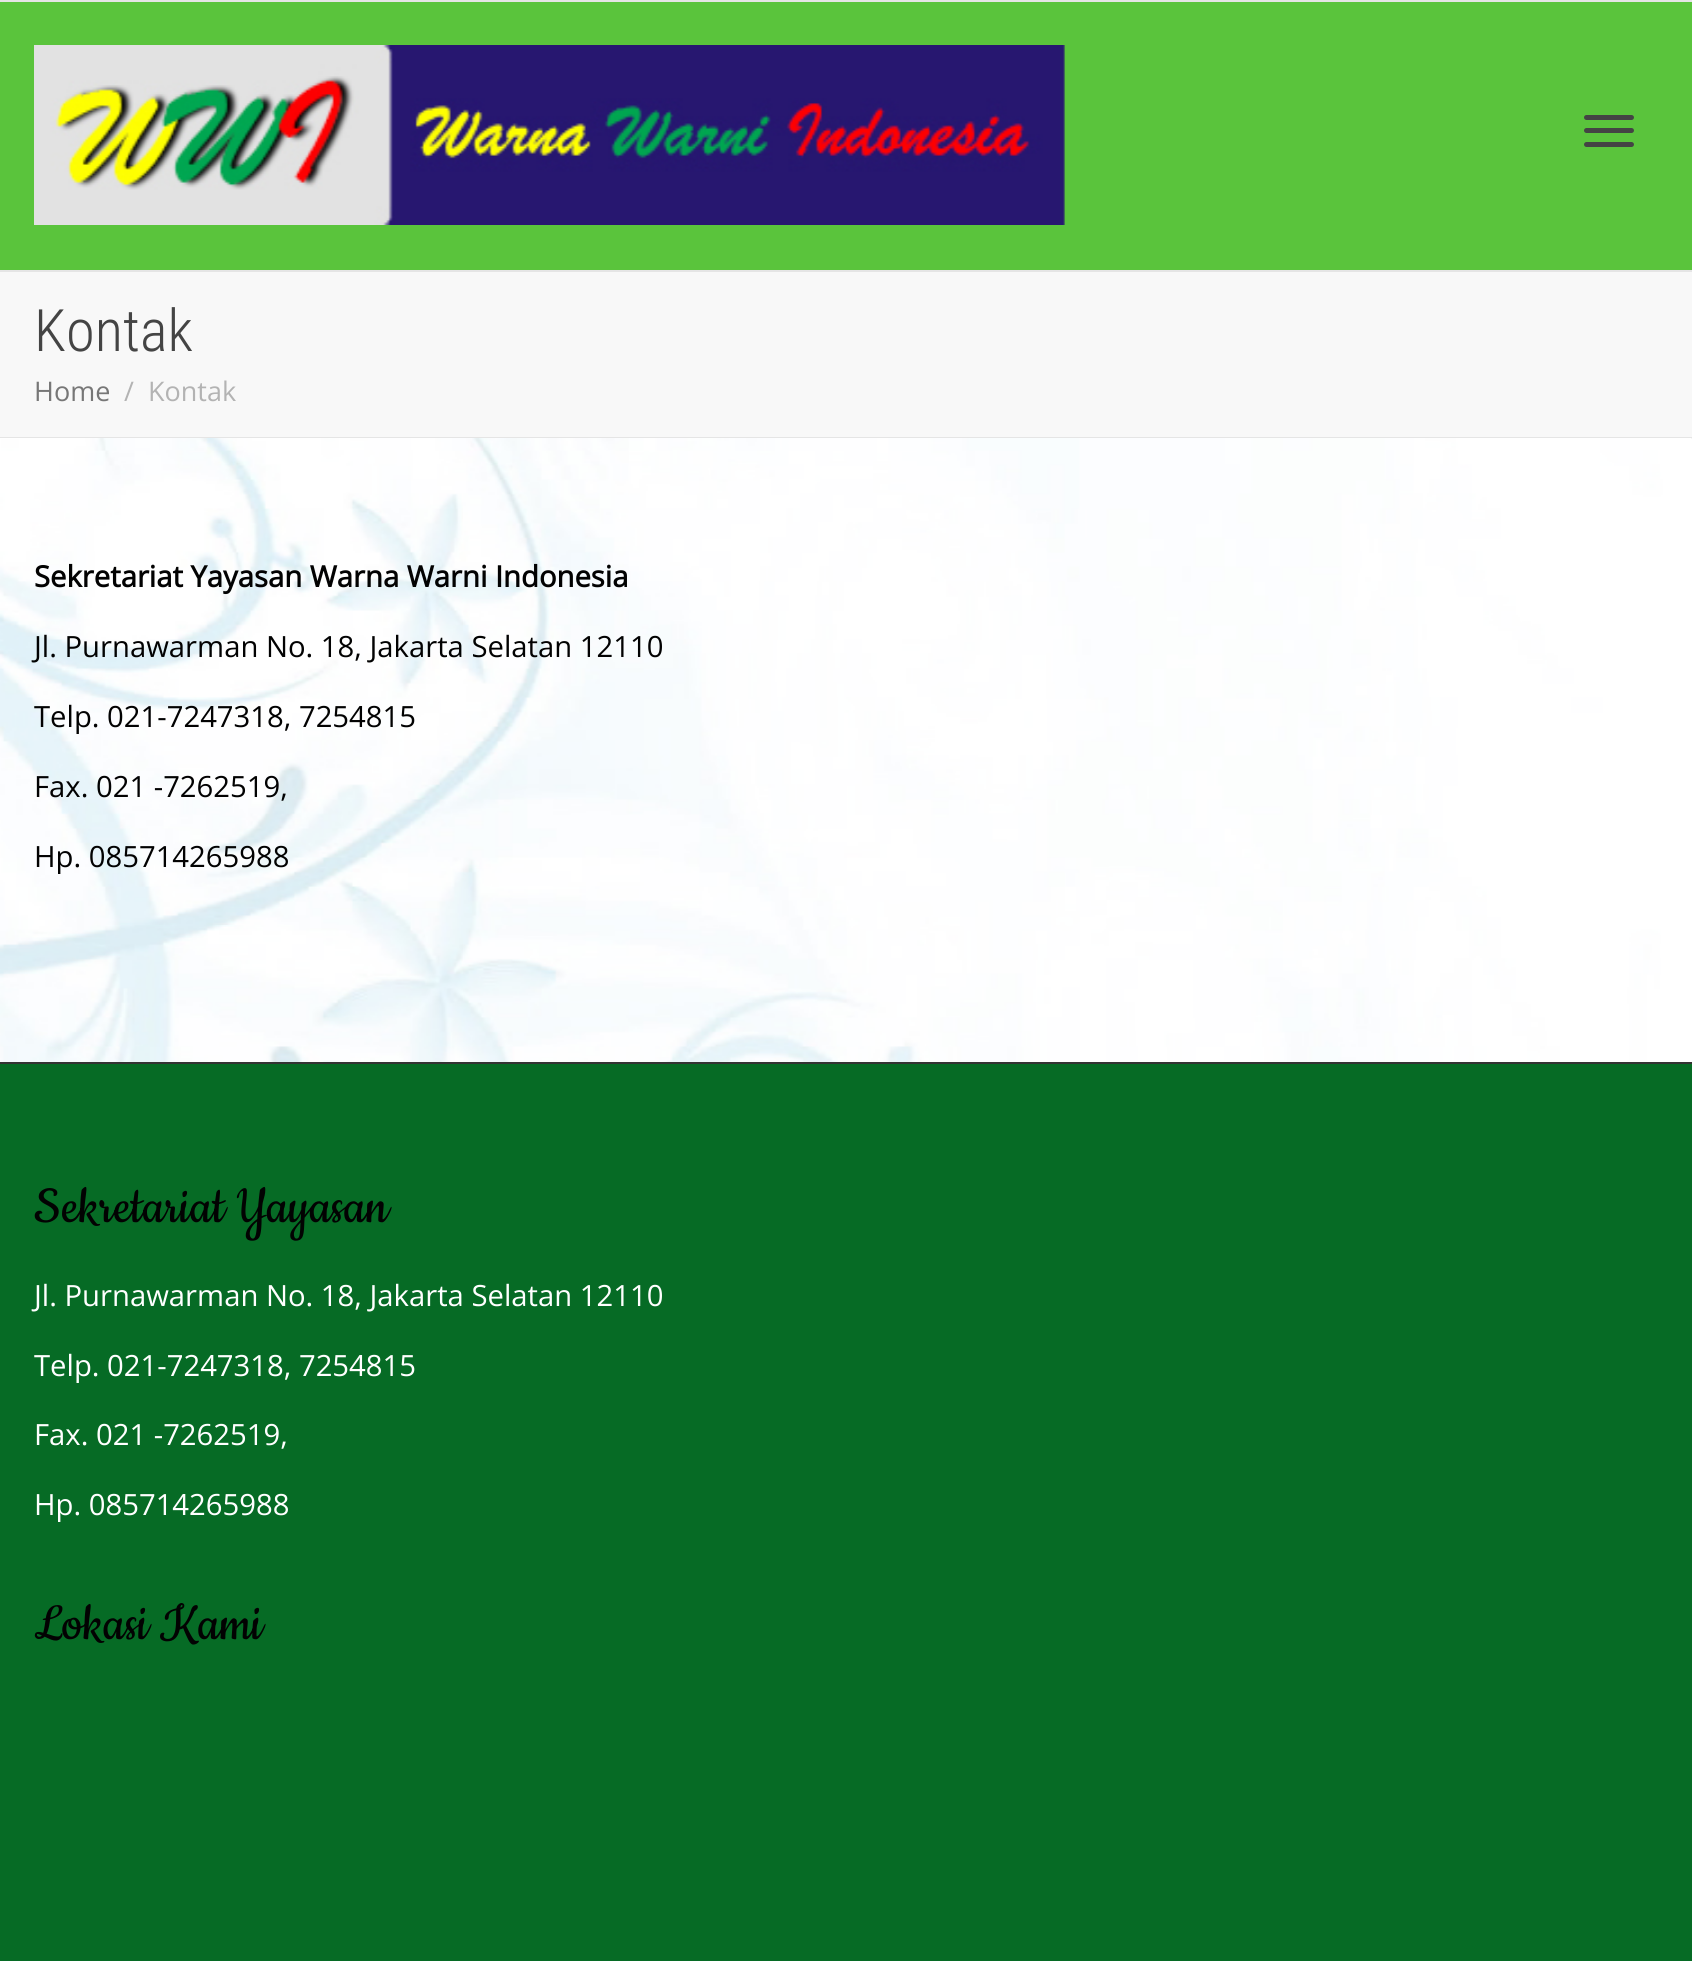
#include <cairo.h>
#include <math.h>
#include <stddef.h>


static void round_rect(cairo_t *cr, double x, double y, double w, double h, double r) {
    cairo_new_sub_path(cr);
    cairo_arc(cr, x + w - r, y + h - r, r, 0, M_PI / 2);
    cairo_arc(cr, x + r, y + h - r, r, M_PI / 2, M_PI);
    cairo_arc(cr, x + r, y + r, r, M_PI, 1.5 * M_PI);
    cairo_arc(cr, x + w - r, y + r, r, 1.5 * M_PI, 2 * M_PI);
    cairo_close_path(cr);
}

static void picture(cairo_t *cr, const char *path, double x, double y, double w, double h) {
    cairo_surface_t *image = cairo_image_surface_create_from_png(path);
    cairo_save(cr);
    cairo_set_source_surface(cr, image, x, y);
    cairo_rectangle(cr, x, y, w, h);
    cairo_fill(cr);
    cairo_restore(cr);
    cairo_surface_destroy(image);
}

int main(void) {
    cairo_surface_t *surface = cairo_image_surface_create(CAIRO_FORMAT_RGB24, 1692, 1961);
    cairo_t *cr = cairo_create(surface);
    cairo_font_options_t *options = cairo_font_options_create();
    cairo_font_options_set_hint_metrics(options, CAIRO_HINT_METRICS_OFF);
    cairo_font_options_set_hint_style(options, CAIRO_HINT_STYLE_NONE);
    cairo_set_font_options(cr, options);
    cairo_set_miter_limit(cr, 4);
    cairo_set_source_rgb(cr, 1, 1, 1);
    cairo_paint(cr);
    cairo_set_source_rgb(cr, 0.898, 0.898, 0.898);
    cairo_rectangle(cr, 0, 0, 1692, 2);
    cairo_fill(cr);
    cairo_set_source_rgb(cr, 0.353, 0.769, 0.235);
    cairo_rectangle(cr, 0, 2, 1692, 268);
    cairo_fill(cr);
    cairo_set_source_rgb(cr, 0.898, 0.898, 0.898);
    cairo_rectangle(cr, 0, 270, 1692, 2);
    cairo_fill(cr);
    picture(cr, "img1.png", 34, 45, 1031, 180);
    cairo_set_source_rgb(cr, 0.267, 0.267, 0.267);
    round_rect(cr, 1584, 115, 50, 5, 2.5);
    cairo_fill(cr);
    round_rect(cr, 1584, 128, 50, 5, 2.5);
    cairo_fill(cr);
    round_rect(cr, 1584, 142, 50, 5, 2.5);
    cairo_fill(cr);
    cairo_set_source_rgb(cr, 0.969, 0.969, 0.969);
    cairo_rectangle(cr, 0, 272, 1692, 165);
    cairo_fill(cr);
    cairo_set_source_rgb(cr, 0.898, 0.898, 0.898);
    cairo_rectangle(cr, 0, 437, 1692, 2);
    cairo_fill(cr);
    cairo_select_font_face(cr, "Roboto Condensed Light", CAIRO_FONT_SLANT_NORMAL, CAIRO_FONT_WEIGHT_NORMAL);
    cairo_set_font_size(cr, 58.5);
    cairo_set_source_rgb(cr, 0.267, 0.267, 0.267);
    cairo_move_to(cr, 34, 351);
    cairo_show_text(cr, "Kontak");
    cairo_select_font_face(cr, "Open Sans", CAIRO_FONT_SLANT_NORMAL, CAIRO_FONT_WEIGHT_NORMAL);
    cairo_set_font_size(cr, 27);
    cairo_set_source_rgb(cr, 0.467, 0.467, 0.467);
    cairo_move_to(cr, 34, 401);
    cairo_show_text(cr, "Home");
    cairo_set_source_rgb(cr, 0.702, 0.702, 0.702);
    cairo_move_to(cr, 124, 401);
    cairo_show_text(cr, "/");
    cairo_move_to(cr, 148, 401);
    cairo_show_text(cr, "Kontak");
    picture(cr, "img2.png", 0, 438, 1692, 624);
    cairo_select_font_face(cr, "Open Sans", CAIRO_FONT_SLANT_NORMAL, CAIRO_FONT_WEIGHT_BOLD);
    cairo_set_font_size(cr, 29.25);
    cairo_set_source_rgb(cr, 0.008, 0.008, 0.008);
    cairo_move_to(cr, 34, 587);
    cairo_show_text(cr, "Sekretariat Yayasan Warna Warni Indonesia");
    cairo_select_font_face(cr, "Open Sans", CAIRO_FONT_SLANT_NORMAL, CAIRO_FONT_WEIGHT_NORMAL);
    cairo_move_to(cr, 34, 657);
    cairo_show_text(cr, "Jl. Purnawarman No. 18, Jakarta Selatan 12110");
    cairo_move_to(cr, 34, 727);
    cairo_show_text(cr, "Telp. 021-7247318, 7254815");
    cairo_move_to(cr, 34, 797);
    cairo_show_text(cr, "Fax. 021 -7262519,");
    cairo_move_to(cr, 34, 867);
    cairo_show_text(cr, "Hp. 085714265988");
    cairo_set_source_rgb(cr, 0.024, 0.42, 0.145);
    cairo_rectangle(cr, 0, 1064, 1692, 897);
    cairo_fill(cr);
    cairo_set_source_rgb(cr, 0.2, 0.2, 0.2);
    cairo_rectangle(cr, 0, 1062, 1692, 2);
    cairo_fill(cr);
    cairo_select_font_face(cr, "Cookie", CAIRO_FONT_SLANT_NORMAL, CAIRO_FONT_WEIGHT_NORMAL);
    cairo_set_font_size(cr, 58.5);
    cairo_set_source_rgb(cr, 0.008, 0.008, 0.008);
    cairo_move_to(cr, 34, 1222);
    cairo_show_text(cr, "Sekretariat Yayasan");
    cairo_select_font_face(cr, "Open Sans", CAIRO_FONT_SLANT_NORMAL, CAIRO_FONT_WEIGHT_NORMAL);
    cairo_set_font_size(cr, 29.25);
    cairo_set_source_rgb(cr, 1, 1, 1);
    cairo_move_to(cr, 34, 1306);
    cairo_show_text(cr, "Jl. Purnawarman No. 18, Jakarta Selatan 12110");
    cairo_move_to(cr, 34, 1376);
    cairo_show_text(cr, "Telp. 021-7247318, 7254815");
    cairo_move_to(cr, 34, 1445);
    cairo_show_text(cr, "Fax. 021 -7262519,");
    cairo_move_to(cr, 34, 1515);
    cairo_show_text(cr, "Hp. 085714265988");
    cairo_select_font_face(cr, "Cookie", CAIRO_FONT_SLANT_NORMAL, CAIRO_FONT_WEIGHT_NORMAL);
    cairo_set_font_size(cr, 58.5);
    cairo_set_source_rgb(cr, 0.008, 0.008, 0.008);
    cairo_move_to(cr, 34, 1639);
    cairo_show_text(cr, "Lokasi Kami");
    cairo_surface_write_to_png(surface, "page.png");
    cairo_font_options_destroy(options);
    cairo_destroy(cr);
    cairo_surface_destroy(surface);
    return 0;
}
